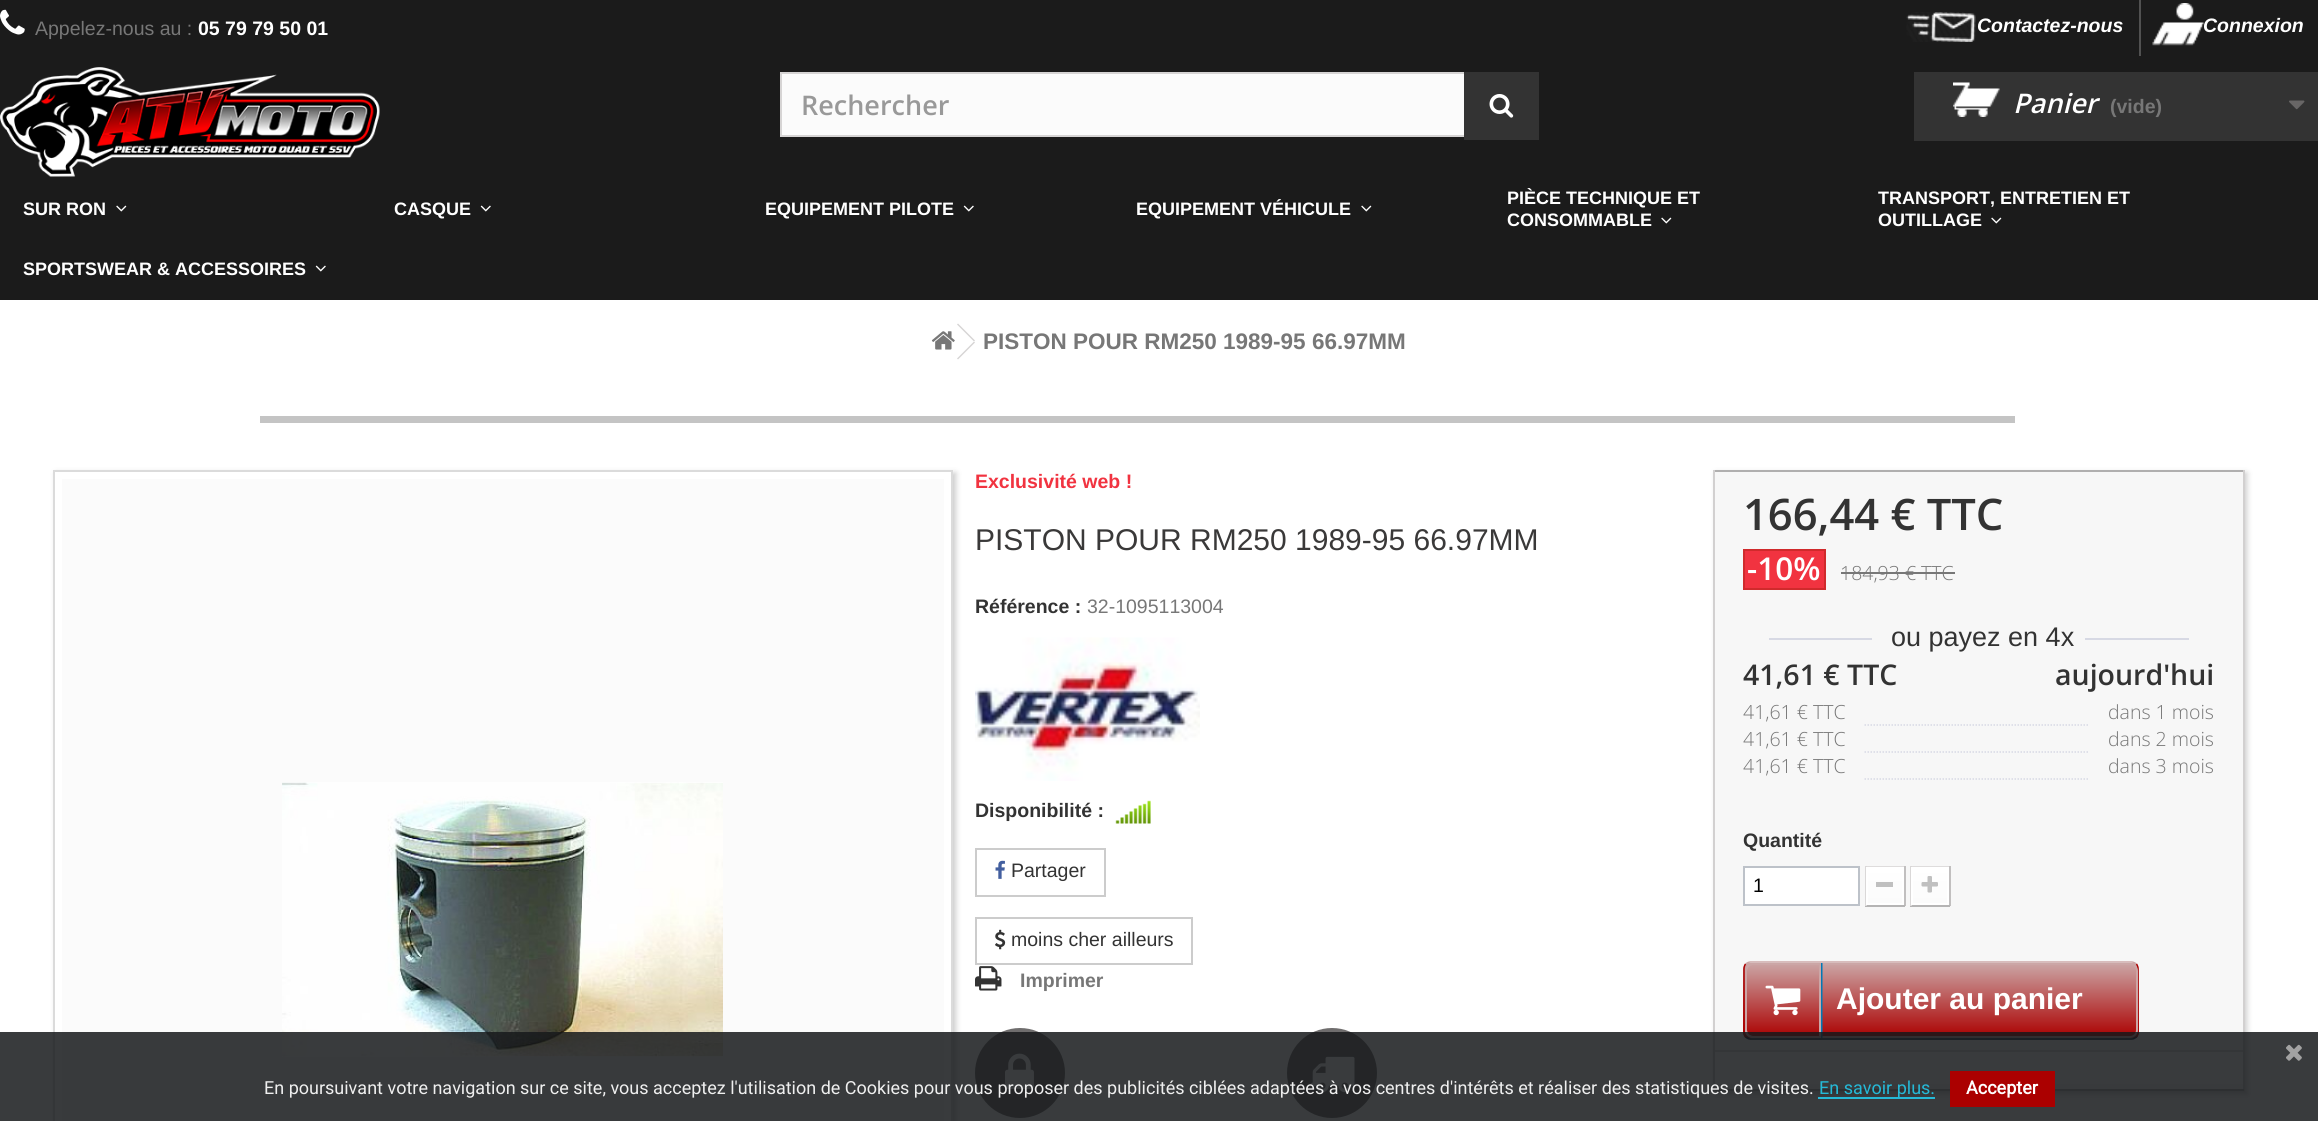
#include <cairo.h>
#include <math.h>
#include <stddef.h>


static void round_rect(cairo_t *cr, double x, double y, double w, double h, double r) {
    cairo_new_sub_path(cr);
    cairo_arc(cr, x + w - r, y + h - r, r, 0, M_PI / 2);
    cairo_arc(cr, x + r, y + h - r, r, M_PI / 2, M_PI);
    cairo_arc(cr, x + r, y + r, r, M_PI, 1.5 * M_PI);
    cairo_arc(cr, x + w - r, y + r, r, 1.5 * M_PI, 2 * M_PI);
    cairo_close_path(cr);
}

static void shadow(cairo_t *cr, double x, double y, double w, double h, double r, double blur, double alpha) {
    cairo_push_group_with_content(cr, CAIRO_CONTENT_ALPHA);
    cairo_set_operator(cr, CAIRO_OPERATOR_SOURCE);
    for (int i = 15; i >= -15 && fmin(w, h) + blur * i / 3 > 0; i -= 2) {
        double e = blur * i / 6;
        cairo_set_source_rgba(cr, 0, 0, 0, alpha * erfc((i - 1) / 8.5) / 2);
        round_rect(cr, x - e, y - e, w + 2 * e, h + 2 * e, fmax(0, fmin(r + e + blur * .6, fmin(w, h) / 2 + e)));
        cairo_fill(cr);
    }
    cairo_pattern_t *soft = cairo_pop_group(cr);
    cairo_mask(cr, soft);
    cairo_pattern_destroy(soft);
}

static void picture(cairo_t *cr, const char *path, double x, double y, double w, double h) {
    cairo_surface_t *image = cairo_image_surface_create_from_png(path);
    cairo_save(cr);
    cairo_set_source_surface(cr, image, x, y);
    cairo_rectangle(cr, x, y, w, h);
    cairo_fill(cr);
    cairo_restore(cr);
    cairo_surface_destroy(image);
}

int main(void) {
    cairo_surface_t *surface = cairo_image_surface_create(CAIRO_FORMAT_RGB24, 2318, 1121);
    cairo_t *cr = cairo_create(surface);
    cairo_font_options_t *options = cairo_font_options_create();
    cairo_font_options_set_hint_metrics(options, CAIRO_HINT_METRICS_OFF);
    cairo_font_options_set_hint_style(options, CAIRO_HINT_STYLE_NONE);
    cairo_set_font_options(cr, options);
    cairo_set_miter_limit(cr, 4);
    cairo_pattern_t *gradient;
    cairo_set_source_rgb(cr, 1, 1, 1);
    cairo_paint(cr);
    cairo_set_source_rgb(cr, 0.106, 0.106, 0.106);
    cairo_rectangle(cr, 0, 0, 2318, 300);
    cairo_fill(cr);
    picture(cr, "img1.png", 0, 9, 25, 26);
    cairo_select_font_face(cr, "Liberation Sans", CAIRO_FONT_SLANT_NORMAL, CAIRO_FONT_WEIGHT_NORMAL);
    cairo_set_font_size(cr, 19.5);
    cairo_set_source_rgb(cr, 0.467, 0.467, 0.467);
    cairo_move_to(cr, 35, 35);
    cairo_show_text(cr, "Appelez-nous au :");
    cairo_select_font_face(cr, "Liberation Sans", CAIRO_FONT_SLANT_NORMAL, CAIRO_FONT_WEIGHT_BOLD);
    cairo_set_source_rgb(cr, 1, 1, 1);
    cairo_move_to(cr, 198, 35);
    cairo_show_text(cr, "05 79 79 50 01");
    picture(cr, "img2.png", 1906, 12, 70, 30);
    cairo_select_font_face(cr, "Liberation Sans", CAIRO_FONT_SLANT_ITALIC, CAIRO_FONT_WEIGHT_BOLD);
    cairo_move_to(cr, 1977, 32);
    cairo_show_text(cr, "Contactez-nous");
    cairo_set_source_rgb(cr, 0.318, 0.318, 0.318);
    cairo_rectangle(cr, 2139, 0, 2, 56);
    cairo_fill(cr);
    picture(cr, "img3.png", 2152, 3, 52, 43);
    cairo_set_source_rgb(cr, 1, 1, 1);
    cairo_move_to(cr, 2203, 32);
    cairo_show_text(cr, "Connexion");
    picture(cr, "img4.png", 0, 67, 380, 110);
    cairo_set_source_rgb(cr, 0.984, 0.984, 0.984);
    cairo_rectangle(cr, 782, 74, 682, 61);
    cairo_fill(cr);
    cairo_rectangle(cr, 781, 73, 757, 63);
    cairo_set_source_rgb(cr, 0.839, 0.831, 0.831);
    cairo_stroke(cr);
    cairo_select_font_face(cr, "Open Sans SemiBold", CAIRO_FONT_SLANT_NORMAL, CAIRO_FONT_WEIGHT_NORMAL);
    cairo_set_font_size(cr, 27);
    cairo_set_source_rgb(cr, 0.6, 0.6, 0.6);
    cairo_move_to(cr, 801, 115);
    cairo_show_text(cr, "Rechercher");
    cairo_set_source_rgb(cr, 0.2, 0.2, 0.2);
    cairo_rectangle(cr, 1464, 72, 75, 68);
    cairo_fill(cr);
    picture(cr, "img5.png", 1489, 94, 25, 24);
    cairo_rectangle(cr, 1914, 72, 404, 69);
    cairo_fill(cr);
    picture(cr, "img6.png", 1953, 82, 47, 35);
    cairo_select_font_face(cr, "Open Sans SemiBold", CAIRO_FONT_SLANT_ITALIC, CAIRO_FONT_WEIGHT_NORMAL);
    cairo_set_source_rgb(cr, 1, 1, 1);
    cairo_move_to(cr, 2013, 113);
    cairo_show_text(cr, "Panier");
    cairo_select_font_face(cr, "Liberation Sans", CAIRO_FONT_SLANT_NORMAL, CAIRO_FONT_WEIGHT_BOLD);
    cairo_set_font_size(cr, 19.5);
    cairo_set_source_rgb(cr, 0.467, 0.467, 0.467);
    cairo_move_to(cr, 2110, 113);
    cairo_show_text(cr, "(vide)");
    picture(cr, "img7.png", 2289, 100, 16, 10);
    cairo_set_font_size(cr, 18);
    cairo_set_source_rgb(cr, 1, 1, 1);
    cairo_move_to(cr, 23, 215);
    cairo_show_text(cr, "SUR RON");
    picture(cr, "img8.png", 116, 205, 11, 7);
    cairo_move_to(cr, 394, 215);
    cairo_show_text(cr, "CASQUE");
    picture(cr, "img9.png", 480, 205, 11, 7);
    cairo_move_to(cr, 765, 215);
    cairo_show_text(cr, "EQUIPEMENT PILOTE");
    picture(cr, "img9.png", 963, 205, 11, 7);
    cairo_move_to(cr, 1136, 215);
    cairo_show_text(cr, "EQUIPEMENT VÉHICULE");
    picture(cr, "img8.png", 1361, 205, 11, 7);
    cairo_move_to(cr, 1507, 204);
    cairo_show_text(cr, "PIÈCE TECHNIQUE ET");
    cairo_move_to(cr, 1507, 226);
    cairo_show_text(cr, "CONSOMMABLE");
    picture(cr, "img8.png", 1661, 217, 11, 7);
    cairo_move_to(cr, 1878, 204);
    cairo_show_text(cr, "TRANSPORT, ENTRETIEN ET");
    cairo_move_to(cr, 1878, 226);
    cairo_show_text(cr, "OUTILLAGE");
    picture(cr, "img8.png", 1991, 217, 11, 7);
    cairo_move_to(cr, 23, 275);
    cairo_show_text(cr, "SPORTSWEAR & ACCESSOIRES");
    picture(cr, "img9.png", 315, 265, 11, 7);
    picture(cr, "img10.png", 931, 331, 24, 19);
    cairo_set_source_rgb(cr, 0.839, 0.831, 0.831);
    cairo_new_path(cr);
    cairo_move_to(cr, 958, 323.5);
    cairo_line_to(cr, 975, 340.5);
    cairo_line_to(cr, 974, 341.5);
    cairo_line_to(cr, 957, 324.5);
    cairo_close_path(cr);
    cairo_fill(cr);
    cairo_new_path(cr);
    cairo_move_to(cr, 974, 341.5);
    cairo_line_to(cr, 975, 342.5);
    cairo_line_to(cr, 958, 359.5);
    cairo_line_to(cr, 957, 358.5);
    cairo_close_path(cr);
    cairo_fill(cr);
    cairo_set_font_size(cr, 22.5);
    cairo_set_source_rgb(cr, 0.467, 0.467, 0.467);
    cairo_move_to(cr, 983, 349);
    cairo_show_text(cr, "PISTON POUR RM250 1989-95 66.97MM");
    cairo_set_source_rgb(cr, 0.769, 0.769, 0.769);
    cairo_rectangle(cr, 260, 416, 1755, 7);
    cairo_fill(cr);
    cairo_set_source_rgb(cr, 0, 0, 0);
    shadow(cr, 56, 473, 900, 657, 0, 3, 0.2);
    cairo_set_source_rgb(cr, 1, 1, 1);
    cairo_rectangle(cr, 54, 471, 898, 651);
    cairo_fill_preserve(cr);
    cairo_set_source_rgb(cr, 0.859, 0.859, 0.859);
    cairo_stroke(cr);
    cairo_set_source_rgb(cr, 0.984, 0.984, 0.984);
    cairo_rectangle(cr, 62, 479, 882, 642);
    cairo_fill(cr);
    picture(cr, "img11.png", 282, 782, 441, 275);
    cairo_set_font_size(cr, 19.5);
    cairo_set_source_rgb(cr, 0.945, 0.2, 0.251);
    cairo_move_to(cr, 975, 488);
    cairo_show_text(cr, "Exclusivité web !");
    cairo_select_font_face(cr, "Liberation Sans", CAIRO_FONT_SLANT_NORMAL, CAIRO_FONT_WEIGHT_NORMAL);
    cairo_set_font_size(cr, 30);
    cairo_set_source_rgb(cr, 0.227, 0.224, 0.224);
    cairo_move_to(cr, 975, 550);
    cairo_show_text(cr, "PISTON POUR RM250 1989-95 66.97MM");
    cairo_select_font_face(cr, "Liberation Sans", CAIRO_FONT_SLANT_NORMAL, CAIRO_FONT_WEIGHT_BOLD);
    cairo_set_font_size(cr, 19.5);
    cairo_set_source_rgb(cr, 0.2, 0.2, 0.2);
    cairo_move_to(cr, 975, 613);
    cairo_show_text(cr, "Référence :");
    cairo_select_font_face(cr, "Liberation Sans", CAIRO_FONT_SLANT_NORMAL, CAIRO_FONT_WEIGHT_NORMAL);
    cairo_set_source_rgb(cr, 0.467, 0.467, 0.467);
    cairo_move_to(cr, 1087, 613);
    cairo_show_text(cr, "32-1095113004");
    picture(cr, "img12.png", 975, 637, 225, 144);
    cairo_select_font_face(cr, "Liberation Sans", CAIRO_FONT_SLANT_NORMAL, CAIRO_FONT_WEIGHT_BOLD);
    cairo_set_source_rgb(cr, 0.2, 0.2, 0.2);
    cairo_move_to(cr, 975, 817);
    cairo_show_text(cr, "Disponibilité :");
    picture(cr, "img13.png", 1115, 800, 36, 24);
    cairo_rectangle(cr, 976, 849, 129, 47);
    cairo_set_source_rgb(cr, 0.8, 0.8, 0.8);
    cairo_stroke(cr);
    picture(cr, "img14.png", 995, 860, 10, 19);
    cairo_select_font_face(cr, "Liberation Sans", CAIRO_FONT_SLANT_NORMAL, CAIRO_FONT_WEIGHT_NORMAL);
    cairo_set_source_rgb(cr, 0.2, 0.2, 0.2);
    cairo_move_to(cr, 1011, 877);
    cairo_show_text(cr, "Partager");
    cairo_rectangle(cr, 976, 918, 216, 46);
    cairo_set_source_rgb(cr, 0.8, 0.8, 0.8);
    cairo_stroke(cr);
    picture(cr, "img15.png", 995, 929, 11, 21);
    cairo_set_source_rgb(cr, 0.2, 0.2, 0.2);
    cairo_move_to(cr, 1011, 946);
    cairo_show_text(cr, "moins cher ailleurs");
    picture(cr, "img16.png", 975, 966, 27, 25);
    cairo_select_font_face(cr, "Liberation Sans", CAIRO_FONT_SLANT_NORMAL, CAIRO_FONT_WEIGHT_BOLD);
    cairo_set_source_rgb(cr, 0.467, 0.467, 0.467);
    cairo_move_to(cr, 1020, 987);
    cairo_show_text(cr, "Imprimer");
    cairo_set_source_rgb(cr, 0.435, 0.427, 0.427);
    cairo_new_path(cr);
    cairo_arc(cr, 1020, 1073, 45, 0, 2 * M_PI);
    cairo_fill(cr);
    picture(cr, "img17.png", 1005, 1053, 29, 36);
    cairo_arc(cr, 1332, 1073, 45, 0, 2 * M_PI);
    cairo_fill(cr);
    picture(cr, "img18.png", 1311, 1056, 44, 37);
    cairo_set_source_rgb(cr, 0, 0, 0);
    shadow(cr, 1716, 473, 531, 621, 0, 3, 0.2);
    cairo_set_source_rgb(cr, 0.965, 0.965, 0.965);
    cairo_rectangle(cr, 1715, 472, 528, 578);
    cairo_fill(cr);
    cairo_set_source_rgb(cr, 0.69, 0.686, 0.686);
    cairo_rectangle(cr, 1713, 470, 531, 2);
    cairo_fill(cr);
    cairo_set_source_rgb(cr, 0.824, 0.816, 0.816);
    cairo_rectangle(cr, 2243, 470, 2, 621);
    cairo_fill(cr);
    cairo_set_source_rgb(cr, 0.69, 0.686, 0.686);
    cairo_rectangle(cr, 1713, 1089, 531, 2);
    cairo_fill(cr);
    cairo_set_source_rgb(cr, 0.824, 0.816, 0.816);
    cairo_rectangle(cr, 1713, 470, 2, 621);
    cairo_fill(cr);
    cairo_select_font_face(cr, "Open Sans SemiBold", CAIRO_FONT_SLANT_NORMAL, CAIRO_FONT_WEIGHT_NORMAL);
    cairo_set_font_size(cr, 43.5);
    cairo_set_source_rgb(cr, 0.2, 0.2, 0.2);
    cairo_move_to(cr, 1743, 530);
    cairo_show_text(cr, "166,44 € TTC");
    cairo_set_source_rgb(cr, 0.945, 0.2, 0.251);
    cairo_rectangle(cr, 1744, 550, 81, 39);
    cairo_fill_preserve(cr);
    cairo_set_source_rgb(cr, 0.816, 0.165, 0.173);
    cairo_stroke(cr);
    cairo_set_font_size(cr, 31.5);
    cairo_set_source_rgb(cr, 1, 1, 1);
    cairo_move_to(cr, 1747, 580);
    cairo_show_text(cr, "-10%");
    cairo_select_font_face(cr, "Open Sans Light", CAIRO_FONT_SLANT_NORMAL, CAIRO_FONT_WEIGHT_NORMAL);
    cairo_set_font_size(cr, 19.5);
    cairo_set_source_rgb(cr, 0.467, 0.467, 0.467);
    cairo_move_to(cr, 1840, 580);
    cairo_show_text(cr, "184,93 € TTC");
    cairo_rectangle(cr, 1841, 572, 114, 2);
    cairo_fill(cr);
    cairo_set_source_rgb(cr, 0.843, 0.851, 0.894);
    cairo_rectangle(cr, 1769, 638, 103, 2);
    cairo_fill(cr);
    cairo_select_font_face(cr, "Liberation Sans", CAIRO_FONT_SLANT_NORMAL, CAIRO_FONT_WEIGHT_NORMAL);
    cairo_set_font_size(cr, 27);
    cairo_set_source_rgb(cr, 0.2, 0.2, 0.2);
    cairo_move_to(cr, 1891, 646);
    cairo_show_text(cr, "ou payez en 4x");
    cairo_set_source_rgb(cr, 0.843, 0.851, 0.894);
    cairo_rectangle(cr, 2085, 638, 104, 2);
    cairo_fill(cr);
    cairo_select_font_face(cr, "Open Sans SemiBold", CAIRO_FONT_SLANT_NORMAL, CAIRO_FONT_WEIGHT_NORMAL);
    cairo_set_font_size(cr, 28.5);
    cairo_set_source_rgb(cr, 0.2, 0.2, 0.2);
    cairo_move_to(cr, 1743, 685);
    cairo_show_text(cr, "41,61 € TTC");
    cairo_move_to(cr, 2055, 685);
    cairo_show_text(cr, "aujourd'hui");
    cairo_select_font_face(cr, "Open Sans Light", CAIRO_FONT_SLANT_NORMAL, CAIRO_FONT_WEIGHT_NORMAL);
    cairo_set_font_size(cr, 19.5);
    cairo_set_source_rgb(cr, 0.467, 0.467, 0.467);
    cairo_move_to(cr, 1743, 719);
    cairo_show_text(cr, "41,61 € TTC");
    cairo_move_to(cr, 2108, 719);
    cairo_show_text(cr, "dans 1 mois");
    cairo_new_path(cr);
    cairo_move_to(cr, 1864.5, 725);
    cairo_line_to(cr, 2088, 725);
    cairo_set_source_rgb(cr, 0.843, 0.851, 0.894);
    cairo_set_line_width(cr, 1.5);
    cairo_set_dash(cr, (double[]){1.5, 1.5}, 2, 0);
    cairo_stroke(cr);
    cairo_set_source_rgb(cr, 0.467, 0.467, 0.467);
    cairo_move_to(cr, 1743, 746);
    cairo_show_text(cr, "41,61 € TTC");
    cairo_move_to(cr, 2108, 746);
    cairo_show_text(cr, "dans 2 mois");
    cairo_new_path(cr);
    cairo_move_to(cr, 1864.5, 752);
    cairo_line_to(cr, 2088, 752);
    cairo_set_source_rgb(cr, 0.843, 0.851, 0.894);
    cairo_stroke(cr);
    cairo_set_source_rgb(cr, 0.467, 0.467, 0.467);
    cairo_move_to(cr, 1743, 773);
    cairo_show_text(cr, "41,61 € TTC");
    cairo_move_to(cr, 2108, 773);
    cairo_show_text(cr, "dans 3 mois");
    cairo_new_path(cr);
    cairo_move_to(cr, 1864.5, 779);
    cairo_line_to(cr, 2088, 779);
    cairo_set_source_rgb(cr, 0.843, 0.851, 0.894);
    cairo_stroke(cr);
    cairo_select_font_face(cr, "Liberation Sans", CAIRO_FONT_SLANT_NORMAL, CAIRO_FONT_WEIGHT_BOLD);
    cairo_set_source_rgb(cr, 0.2, 0.2, 0.2);
    cairo_move_to(cr, 1743, 847);
    cairo_show_text(cr, "Quantité");
    cairo_set_source_rgb(cr, 1, 1, 1);
    cairo_rectangle(cr, 1744, 867, 115, 38);
    cairo_fill_preserve(cr);
    cairo_set_source_rgb(cr, 0.741, 0.761, 0.788);
    cairo_set_line_width(cr, 2);
    cairo_set_dash(cr, NULL, 0, 0);
    cairo_stroke(cr);
    cairo_select_font_face(cr, "Liberation Sans", CAIRO_FONT_SLANT_NORMAL, CAIRO_FONT_WEIGHT_NORMAL);
    cairo_set_source_rgb(cr, 0, 0, 0);
    cairo_move_to(cr, 1753, 892);
    cairo_show_text(cr, "1");
    cairo_set_source_rgb(cr, 0.871, 0.863, 0.863);
    cairo_rectangle(cr, 1865, 866, 40, 1);
    cairo_fill(cr);
    cairo_set_source_rgb(cr, 0.757, 0.749, 0.749);
    cairo_rectangle(cr, 1904, 866, 2, 40);
    cairo_fill(cr);
    cairo_set_source_rgb(cr, 0.71, 0.706, 0.706);
    cairo_rectangle(cr, 1865, 905, 40, 2);
    cairo_fill(cr);
    cairo_set_source_rgb(cr, 0.855, 0.847, 0.847);
    cairo_rectangle(cr, 1865, 866, 2, 40);
    cairo_fill(cr);
    gradient = cairo_pattern_create_linear(1885, 869, 1885, 903);
    cairo_pattern_add_color_stop_rgba(gradient, 0, 1, 1, 1, 1);
    cairo_pattern_add_color_stop_rgba(gradient, 1, 0.984, 0.984, 0.984, 1);
    cairo_set_source(cr, gradient);
    cairo_pattern_destroy(gradient);
    cairo_rectangle(cr, 1868, 869, 34, 34);
    cairo_fill(cr);
    cairo_rectangle(cr, 1867, 868, 36, 36);
    cairo_set_source_rgb(cr, 1, 1, 1);
    cairo_stroke(cr);
    cairo_set_source_rgb(cr, 0.753, 0.753, 0.753);
    cairo_rectangle(cr, 1876, 882, 17, 5);
    cairo_fill(cr);
    cairo_set_source_rgb(cr, 0.871, 0.863, 0.863);
    cairo_rectangle(cr, 1910, 866, 40, 1);
    cairo_fill(cr);
    cairo_set_source_rgb(cr, 0.757, 0.749, 0.749);
    cairo_rectangle(cr, 1949, 866, 2, 40);
    cairo_fill(cr);
    cairo_set_source_rgb(cr, 0.71, 0.706, 0.706);
    cairo_rectangle(cr, 1910, 905, 40, 2);
    cairo_fill(cr);
    cairo_set_source_rgb(cr, 0.855, 0.847, 0.847);
    cairo_rectangle(cr, 1910, 866, 2, 40);
    cairo_fill(cr);
    gradient = cairo_pattern_create_linear(1930, 869, 1930, 903);
    cairo_pattern_add_color_stop_rgba(gradient, 0, 1, 1, 1, 1);
    cairo_pattern_add_color_stop_rgba(gradient, 1, 0.984, 0.984, 0.984, 1);
    cairo_set_source(cr, gradient);
    cairo_pattern_destroy(gradient);
    cairo_rectangle(cr, 1913, 869, 34, 34);
    cairo_fill(cr);
    cairo_rectangle(cr, 1912, 868, 36, 36);
    cairo_set_source_rgb(cr, 1, 1, 1);
    cairo_stroke(cr);
    picture(cr, "img19.png", 1921, 876, 17, 17);
    cairo_save(cr);
    round_rect(cr, 1743, 962, 396, 78, 8);
    cairo_clip(cr);
    gradient = cairo_pattern_create_linear(1941, 963, 1941, 1038);
    cairo_pattern_add_color_stop_rgba(gradient, 0, 0.796, 0.651, 0.651, 1);
    cairo_pattern_add_color_stop_rgba(gradient, 1, 0.671, 0, 0, 1);
    cairo_set_source(cr, gradient);
    cairo_pattern_destroy(gradient);
    cairo_rectangle(cr, 1743, 963, 396, 75);
    cairo_fill(cr);
    gradient = cairo_pattern_create_linear(1941, 1038, 1941, 1113);
    cairo_pattern_add_color_stop_rgba(gradient, 0, 0.796, 0.651, 0.651, 1);
    cairo_pattern_add_color_stop_rgba(gradient, 1, 0.671, 0, 0, 1);
    cairo_set_source(cr, gradient);
    cairo_pattern_destroy(gradient);
    cairo_rectangle(cr, 1743, 1038, 396, 2);
    cairo_fill(cr);
    cairo_restore(cr);
    cairo_new_path(cr);
    cairo_move_to(cr, 1745.5, 964);
    cairo_curve_to(cr, 1747, 963, 1748.5, 962, 1750.5, 962);
    cairo_line_to(cr, 2131.5, 962);
    cairo_curve_to(cr, 2133.5, 962, 2135, 963, 2136.5, 964);
    cairo_set_source_rgb(cr, 0.796, 0.651, 0.651);
    cairo_set_line_width(cr, 1.5);
    cairo_stroke(cr);
    cairo_new_path(cr);
    cairo_move_to(cr, 2136.5, 964);
    cairo_curve_to(cr, 2137.5, 965.5, 2138, 967, 2138, 969);
    cairo_line_to(cr, 2138, 1032);
    cairo_curve_to(cr, 2138, 1034, 2137.5, 1035.5, 2136.5, 1037);
    cairo_set_source_rgb(cr, 0.671, 0, 0);
    cairo_stroke(cr);
    cairo_new_path(cr);
    cairo_move_to(cr, 2136.5, 1037);
    cairo_curve_to(cr, 2135, 1038, 2133.5, 1039, 2131.5, 1039);
    cairo_line_to(cr, 1750.5, 1039);
    cairo_curve_to(cr, 1748.5, 1039, 1747, 1038, 1745.5, 1037);
    cairo_set_source_rgb(cr, 0.004, 0.153, 0.251);
    cairo_stroke(cr);
    cairo_new_path(cr);
    cairo_move_to(cr, 1745.5, 1037);
    cairo_curve_to(cr, 1744.5, 1035.5, 1744, 1034, 1744, 1032);
    cairo_line_to(cr, 1744, 969);
    cairo_curve_to(cr, 1744, 967, 1744.5, 965.5, 1745.5, 964);
    cairo_set_source_rgb(cr, 0.671, 0, 0);
    cairo_stroke(cr);
    round_rect(cr, 1746, 964, 391, 73, 7);
    cairo_set_source_rgb(cr, 0.796, 0.651, 0.651);
    cairo_set_line_width(cr, 2);
    cairo_stroke(cr);
    cairo_new_path(cr);
    cairo_move_to(cr, 1753, 964);
    cairo_line_to(cr, 1820, 964);
    cairo_line_to(cr, 1820, 1037);
    cairo_line_to(cr, 1753, 1037);
    cairo_curve_to(cr, 1749, 1037, 1746, 1034, 1746, 1030);
    cairo_line_to(cr, 1746, 971);
    cairo_curve_to(cr, 1746, 967, 1749, 964, 1753, 964);
    cairo_close_path(cr);
    cairo_stroke(cr);
    picture(cr, "img20.png", 1765, 985, 36, 31);
    picture(cr, "img21.png", 1821, 963, 2, 75);
    cairo_select_font_face(cr, "Liberation Sans", CAIRO_FONT_SLANT_NORMAL, CAIRO_FONT_WEIGHT_BOLD);
    cairo_set_font_size(cr, 30);
    cairo_set_source_rgb(cr, 1, 1, 1);
    cairo_move_to(cr, 1836, 1009);
    cairo_show_text(cr, "Ajouter au panier");
    gradient = cairo_pattern_create_linear(1979, 1052, 1979, 1089);
    cairo_pattern_add_color_stop_rgba(gradient, 0, 1, 1, 1, 1);
    cairo_pattern_add_color_stop_rgba(gradient, 1, 0.984, 0.984, 0.984, 1);
    cairo_set_source(cr, gradient);
    cairo_pattern_destroy(gradient);
    cairo_rectangle(cr, 1715, 1052, 528, 37);
    cairo_fill(cr);
    cairo_set_source_rgb(cr, 0.875, 0.871, 0.871);
    cairo_rectangle(cr, 1715, 1050, 528, 2);
    cairo_fill(cr);
    cairo_set_source_rgba(cr, 0.09, 0.098, 0.11, 0.85);
    cairo_rectangle(cr, 0, 1032, 2318, 89);
    cairo_fill(cr);
    picture(cr, "img22.png", 2286, 1044, 16, 17);
    cairo_select_font_face(cr, "Roboto", CAIRO_FONT_SLANT_NORMAL, CAIRO_FONT_WEIGHT_NORMAL);
    cairo_set_font_size(cr, 18);
    cairo_set_source_rgb(cr, 0.937, 0.937, 0.937);
    cairo_move_to(cr, 264, 1094);
    cairo_show_text(cr, "En poursuivant votre navigation sur ce site, vous acceptez l'utilisation de Cookies pour vous proposer des publicités ciblées adaptées à vos centres d'intérêts et réaliser des statistiques de visites.");
    cairo_set_source_rgb(cr, 0.145, 0.725, 0.843);
    cairo_rectangle(cr, 1818, 1097, 117, 2);
    cairo_fill(cr);
    cairo_move_to(cr, 1819, 1094);
    cairo_show_text(cr, "En savoir plus.");
    cairo_set_source_rgb(cr, 0.671, 0, 0);
    cairo_rectangle(cr, 1950, 1071, 105, 36);
    cairo_fill(cr);
    cairo_select_font_face(cr, "Roboto", CAIRO_FONT_SLANT_NORMAL, CAIRO_FONT_WEIGHT_BOLD);
    cairo_set_source_rgb(cr, 1, 1, 1);
    cairo_move_to(cr, 1966, 1094);
    cairo_show_text(cr, "Accepter");
    cairo_surface_write_to_png(surface, "page.png");
    cairo_font_options_destroy(options);
    cairo_destroy(cr);
    cairo_surface_destroy(surface);
    return 0;
}
